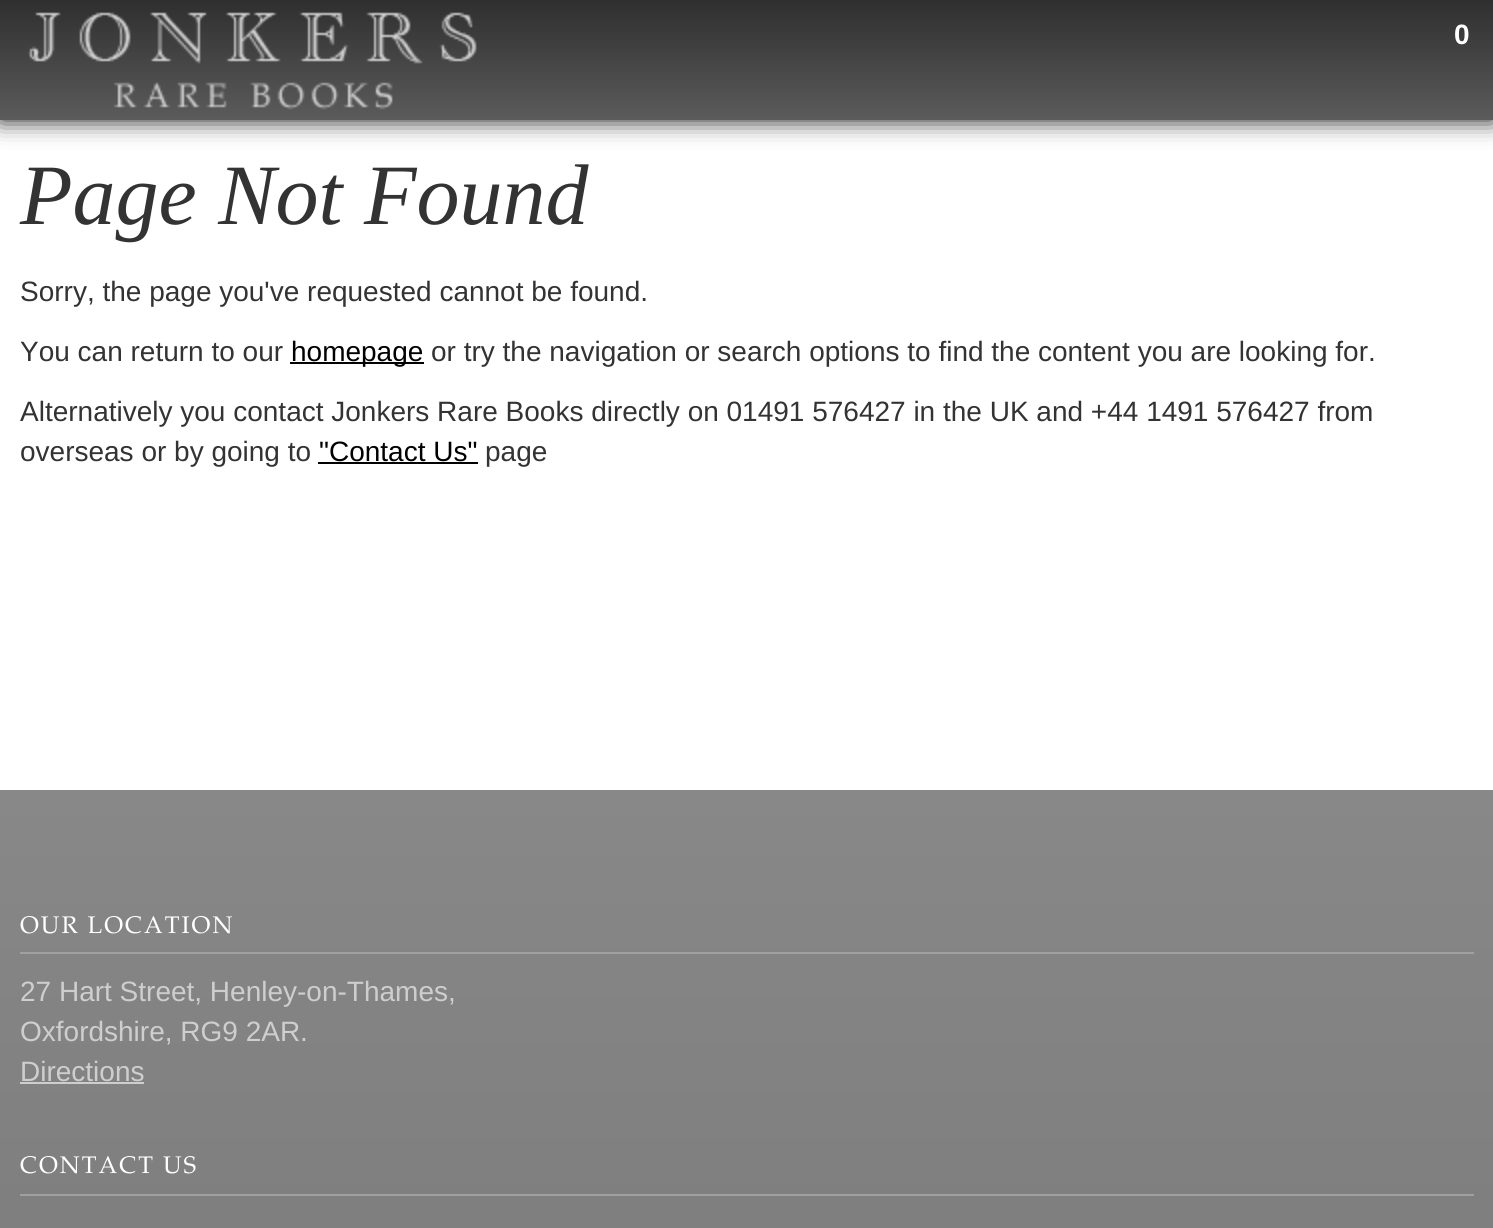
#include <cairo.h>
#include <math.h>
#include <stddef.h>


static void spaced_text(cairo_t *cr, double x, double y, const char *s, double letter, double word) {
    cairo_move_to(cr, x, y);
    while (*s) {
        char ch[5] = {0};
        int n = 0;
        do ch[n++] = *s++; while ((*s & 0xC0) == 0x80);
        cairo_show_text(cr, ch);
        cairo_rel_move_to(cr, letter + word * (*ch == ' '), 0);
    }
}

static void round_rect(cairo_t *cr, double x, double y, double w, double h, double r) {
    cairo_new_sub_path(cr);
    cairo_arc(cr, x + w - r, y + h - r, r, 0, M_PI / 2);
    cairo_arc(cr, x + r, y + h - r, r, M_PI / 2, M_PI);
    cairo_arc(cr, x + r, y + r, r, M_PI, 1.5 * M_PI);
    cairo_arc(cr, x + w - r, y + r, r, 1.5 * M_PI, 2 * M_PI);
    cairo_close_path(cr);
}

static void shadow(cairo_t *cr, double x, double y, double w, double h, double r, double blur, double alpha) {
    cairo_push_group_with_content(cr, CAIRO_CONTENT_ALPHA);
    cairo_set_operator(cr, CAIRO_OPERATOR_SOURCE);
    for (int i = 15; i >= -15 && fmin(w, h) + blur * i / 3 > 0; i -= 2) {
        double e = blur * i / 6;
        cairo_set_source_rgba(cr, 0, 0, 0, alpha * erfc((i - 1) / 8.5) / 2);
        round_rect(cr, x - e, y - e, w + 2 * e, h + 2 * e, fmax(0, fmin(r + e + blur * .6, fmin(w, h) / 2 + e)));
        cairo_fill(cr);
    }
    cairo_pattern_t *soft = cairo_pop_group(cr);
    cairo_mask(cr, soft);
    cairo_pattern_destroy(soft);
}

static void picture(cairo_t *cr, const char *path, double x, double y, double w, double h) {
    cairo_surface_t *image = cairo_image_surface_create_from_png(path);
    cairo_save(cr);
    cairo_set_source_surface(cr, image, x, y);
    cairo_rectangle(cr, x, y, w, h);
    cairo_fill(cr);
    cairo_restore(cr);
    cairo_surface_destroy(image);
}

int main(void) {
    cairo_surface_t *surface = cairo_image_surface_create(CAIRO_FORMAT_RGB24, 1493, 1228);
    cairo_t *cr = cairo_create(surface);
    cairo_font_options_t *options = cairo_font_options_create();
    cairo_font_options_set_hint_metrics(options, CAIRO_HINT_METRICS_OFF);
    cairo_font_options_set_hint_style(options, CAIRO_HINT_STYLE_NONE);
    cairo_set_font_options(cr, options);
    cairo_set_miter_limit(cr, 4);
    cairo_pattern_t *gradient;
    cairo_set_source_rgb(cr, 1, 1, 1);
    cairo_paint(cr);
    cairo_set_source_rgb(cr, 0.067, 0.067, 0.067);
    shadow(cr, 0, 0, 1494, 120, 0, 12, 1);
    gradient = cairo_pattern_create_linear(747, 0, 747, 120);
    cairo_pattern_add_color_stop_rgba(gradient, 0, 0.184, 0.184, 0.184, 1);
    cairo_pattern_add_color_stop_rgba(gradient, 1, 0.357, 0.357, 0.357, 1);
    cairo_set_source(cr, gradient);
    cairo_pattern_destroy(gradient);
    cairo_rectangle(cr, 0, 0, 1493, 120);
    cairo_fill(cr);
    picture(cr, "img1.png", 28, 12, 449, 98);
    cairo_select_font_face(cr, "Liberation Sans", CAIRO_FONT_SLANT_NORMAL, CAIRO_FONT_WEIGHT_BOLD);
    cairo_set_font_size(cr, 28);
    cairo_set_source_rgb(cr, 1, 1, 1);
    cairo_move_to(cr, 1454, 44);
    cairo_show_text(cr, "0");
    cairo_select_font_face(cr, "Liberation Serif", CAIRO_FONT_SLANT_ITALIC, CAIRO_FONT_WEIGHT_NORMAL);
    cairo_set_font_size(cr, 86);
    cairo_set_source_rgb(cr, 0.2, 0.2, 0.2);
    cairo_move_to(cr, 20, 224);
    cairo_show_text(cr, "Page Not Found");
    cairo_select_font_face(cr, "Liberation Sans", CAIRO_FONT_SLANT_NORMAL, CAIRO_FONT_WEIGHT_NORMAL);
    cairo_set_font_size(cr, 28);
    cairo_move_to(cr, 20, 301);
    cairo_show_text(cr, "Sorry, the page you've requested cannot be found.");
    cairo_move_to(cr, 20, 361);
    cairo_show_text(cr, "You can return to our");
    cairo_set_source_rgb(cr, 0, 0, 0);
    cairo_rectangle(cr, 290, 362, 134, 2);
    cairo_fill(cr);
    cairo_move_to(cr, 291, 361);
    cairo_show_text(cr, "homepage");
    cairo_set_source_rgb(cr, 0.2, 0.2, 0.2);
    cairo_move_to(cr, 431, 361);
    cairo_show_text(cr, "or try the navigation or search options to find the content you are looking for.");
    cairo_move_to(cr, 20, 421);
    cairo_show_text(cr, "Alternatively you contact Jonkers Rare Books directly on 01491 576427 in the UK and +44 1491 576427 from");
    cairo_move_to(cr, 20, 461);
    cairo_show_text(cr, "overseas or by going to");
    cairo_set_source_rgb(cr, 0, 0, 0);
    cairo_move_to(cr, 319, 461);
    cairo_show_text(cr, "\"Contact Us\"");
    cairo_rectangle(cr, 318, 462, 160, 2);
    cairo_fill(cr);
    cairo_set_source_rgb(cr, 0.2, 0.2, 0.2);
    cairo_move_to(cr, 485, 461);
    cairo_show_text(cr, "page");
    gradient = cairo_pattern_create_linear(747, 790, 747, 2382);
    cairo_pattern_add_color_stop_rgba(gradient, 0, 0.533, 0.533, 0.533, 1);
    cairo_pattern_add_color_stop_rgba(gradient, 1, 0.4, 0.4, 0.4, 1);
    cairo_set_source(cr, gradient);
    cairo_pattern_destroy(gradient);
    cairo_rectangle(cr, 0, 790, 1493, 438);
    cairo_fill(cr);
    cairo_set_source_rgb(cr, 0.627, 0.627, 0.627);
    cairo_rectangle(cr, 20, 952, 1454, 2);
    cairo_fill(cr);
    cairo_select_font_face(cr, "TeX Gyre Pagella", CAIRO_FONT_SLANT_NORMAL, CAIRO_FONT_WEIGHT_NORMAL);
    cairo_set_font_size(cr, 24);
    cairo_set_source_rgb(cr, 1, 1, 1);
    spaced_text(cr, 20, 933, "OUR LOCATION", 2, 0);
    cairo_select_font_face(cr, "Liberation Sans", CAIRO_FONT_SLANT_NORMAL, CAIRO_FONT_WEIGHT_NORMAL);
    cairo_set_font_size(cr, 28);
    cairo_set_source_rgb(cr, 0.808, 0.808, 0.808);
    cairo_move_to(cr, 20, 1001);
    cairo_show_text(cr, "27 Hart Street, Henley-on-Thames,");
    cairo_move_to(cr, 20, 1041);
    cairo_show_text(cr, "Oxfordshire, RG9 2AR.");
    cairo_move_to(cr, 20, 1081);
    cairo_show_text(cr, "Directions");
    cairo_rectangle(cr, 20, 1082, 124, 2);
    cairo_fill(cr);
    cairo_set_source_rgb(cr, 0.627, 0.627, 0.627);
    cairo_rectangle(cr, 20, 1194, 1454, 2);
    cairo_fill(cr);
    cairo_select_font_face(cr, "TeX Gyre Pagella", CAIRO_FONT_SLANT_NORMAL, CAIRO_FONT_WEIGHT_NORMAL);
    cairo_set_font_size(cr, 24);
    cairo_set_source_rgb(cr, 1, 1, 1);
    spaced_text(cr, 20, 1173, "CONTACT US", 2, 0);
    cairo_surface_write_to_png(surface, "page.png");
    cairo_font_options_destroy(options);
    cairo_destroy(cr);
    cairo_surface_destroy(surface);
    return 0;
}
